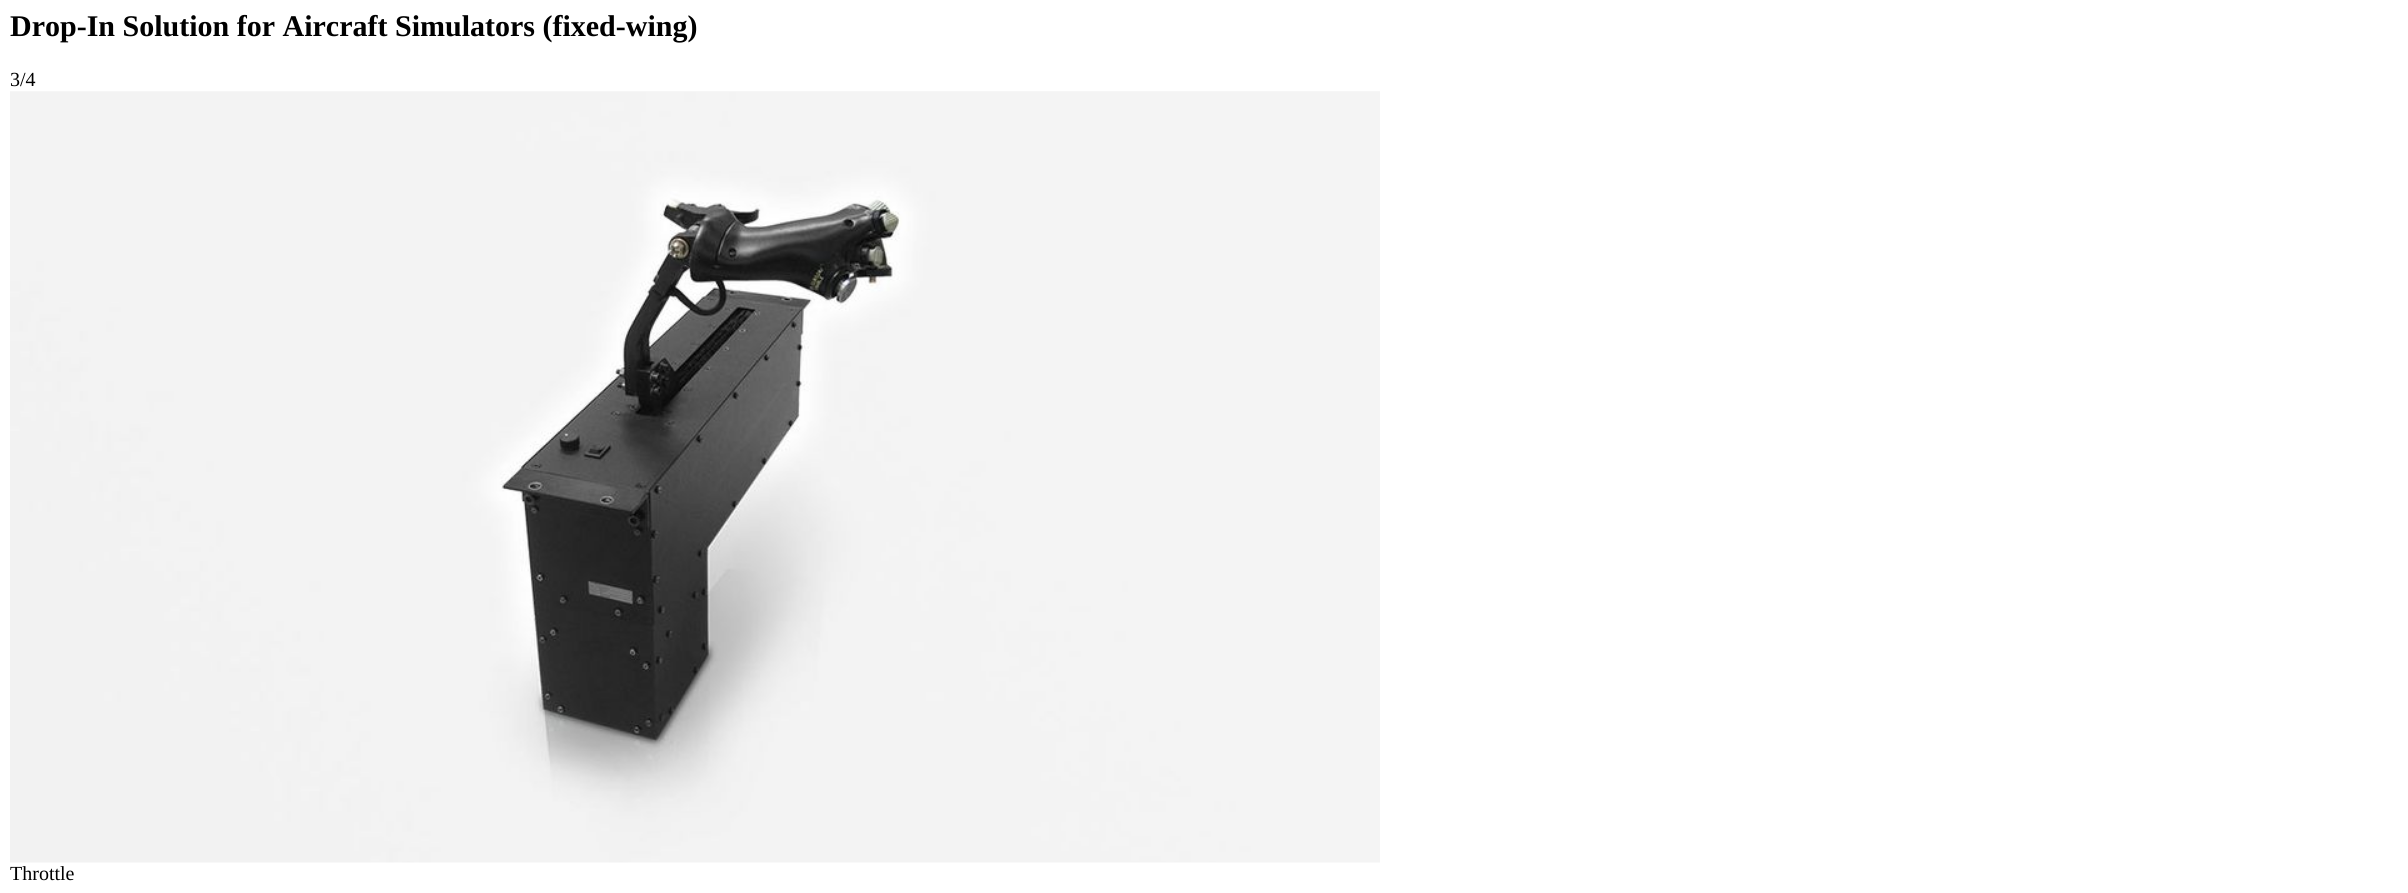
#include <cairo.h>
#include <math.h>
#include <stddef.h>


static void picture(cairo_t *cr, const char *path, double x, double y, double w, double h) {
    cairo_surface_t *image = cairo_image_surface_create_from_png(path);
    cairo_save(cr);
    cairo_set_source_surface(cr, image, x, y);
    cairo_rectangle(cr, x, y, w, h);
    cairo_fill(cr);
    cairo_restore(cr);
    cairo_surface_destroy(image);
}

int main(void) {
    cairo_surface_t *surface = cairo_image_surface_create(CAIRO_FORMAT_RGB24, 2408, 893);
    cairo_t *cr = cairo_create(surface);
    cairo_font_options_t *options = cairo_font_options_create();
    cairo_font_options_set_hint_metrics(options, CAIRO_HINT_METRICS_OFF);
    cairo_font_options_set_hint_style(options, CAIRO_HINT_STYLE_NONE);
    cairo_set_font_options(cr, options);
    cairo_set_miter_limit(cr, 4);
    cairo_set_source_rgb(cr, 1, 1, 1);
    cairo_paint(cr);
    cairo_select_font_face(cr, "Liberation Serif", CAIRO_FONT_SLANT_NORMAL, CAIRO_FONT_WEIGHT_BOLD);
    cairo_set_font_size(cr, 30);
    cairo_set_source_rgb(cr, 0, 0, 0);
    cairo_move_to(cr, 10, 36);
    cairo_show_text(cr, "Drop-In Solution for Aircraft Simulators (fixed-wing)");
    cairo_select_font_face(cr, "Liberation Serif", CAIRO_FONT_SLANT_NORMAL, CAIRO_FONT_WEIGHT_NORMAL);
    cairo_set_font_size(cr, 20);
    cairo_move_to(cr, 10, 86);
    cairo_show_text(cr, "3/4");
    picture(cr, "img1.png", 10, 91, 1370, 772);
    cairo_move_to(cr, 10, 880);
    cairo_show_text(cr, "Throttle");
    cairo_surface_write_to_png(surface, "page.png");
    cairo_font_options_destroy(options);
    cairo_destroy(cr);
    cairo_surface_destroy(surface);
    return 0;
}
